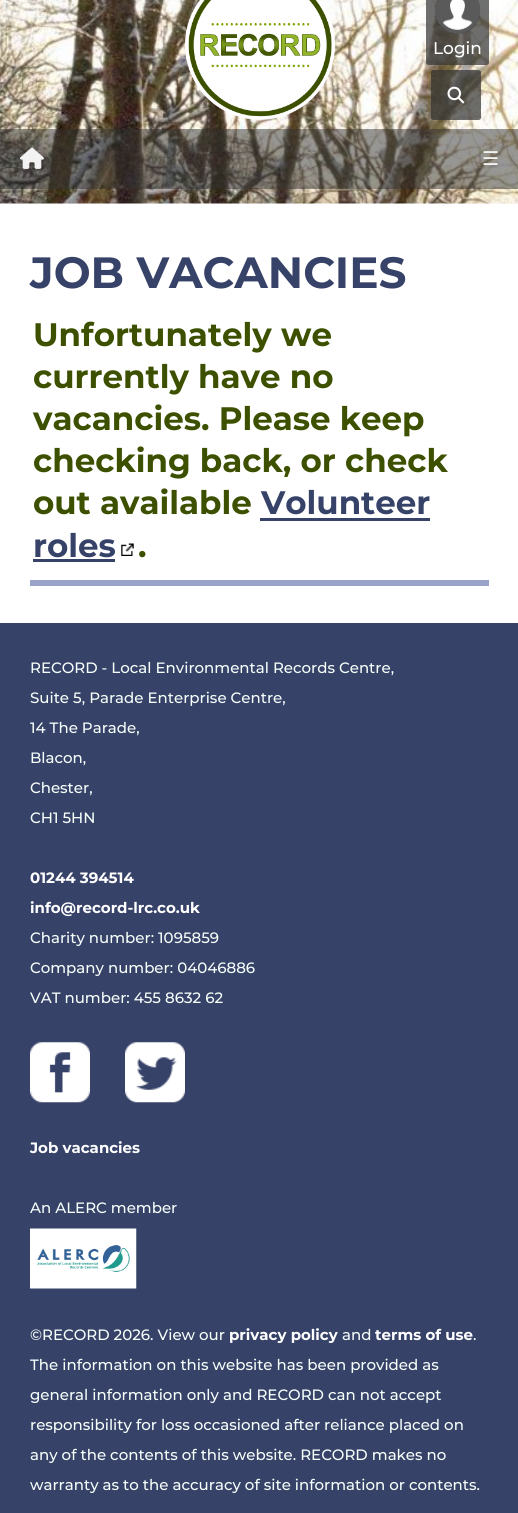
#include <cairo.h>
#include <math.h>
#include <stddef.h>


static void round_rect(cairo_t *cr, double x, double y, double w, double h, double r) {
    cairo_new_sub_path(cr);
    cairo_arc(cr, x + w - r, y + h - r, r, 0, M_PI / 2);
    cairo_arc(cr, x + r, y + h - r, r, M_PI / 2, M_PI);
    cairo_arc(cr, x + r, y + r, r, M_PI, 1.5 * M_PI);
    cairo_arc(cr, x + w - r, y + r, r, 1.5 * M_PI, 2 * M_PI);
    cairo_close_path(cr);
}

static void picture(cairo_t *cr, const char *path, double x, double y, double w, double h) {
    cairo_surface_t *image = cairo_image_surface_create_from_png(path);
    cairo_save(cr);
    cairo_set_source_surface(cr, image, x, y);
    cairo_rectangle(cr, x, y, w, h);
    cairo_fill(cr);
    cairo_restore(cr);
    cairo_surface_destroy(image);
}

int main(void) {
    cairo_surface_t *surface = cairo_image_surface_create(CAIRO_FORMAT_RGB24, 518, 1513);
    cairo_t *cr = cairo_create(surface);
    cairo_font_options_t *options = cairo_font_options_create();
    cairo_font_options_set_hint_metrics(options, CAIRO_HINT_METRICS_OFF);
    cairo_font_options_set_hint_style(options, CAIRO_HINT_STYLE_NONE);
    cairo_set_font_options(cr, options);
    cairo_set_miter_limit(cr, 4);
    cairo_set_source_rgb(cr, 1, 1, 1);
    cairo_paint(cr);
    picture(cr, "img2.png", 0, 0, 518, 204);
    cairo_set_source_rgba(cr, 0.2, 0.2, 0.2, 0.7);
    round_rect(cr, 426, -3, 63, 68, 2.5);
    cairo_fill(cr);
    picture(cr, "img1.png", 435, 0, 45, 34);
    cairo_select_font_face(cr, "Montserrat Medium", CAIRO_FONT_SLANT_NORMAL, CAIRO_FONT_WEIGHT_NORMAL);
    cairo_set_font_size(cr, 17);
    cairo_set_source_rgb(cr, 1, 1, 1);
    cairo_move_to(cr, 433, 54);
    cairo_show_text(cr, "Login");
    picture(cr, "img3.png", 185, 0, 150, 120);
    cairo_set_source_rgba(cr, 0.2, 0.2, 0.2, 0.7);
    round_rect(cr, 431, 70, 50, 50, 2.5);
    cairo_fill(cr);
    picture(cr, "img4.png", 447, 86, 18, 18);
    cairo_set_source_rgba(cr, 0.2, 0.2, 0.2, 0.5);
    cairo_rectangle(cr, 0, 129, 518, 60);
    cairo_fill(cr);
    picture(cr, "img5.png", 20, 147, 24, 22);
    cairo_select_font_face(cr, "DejaVu Sans", CAIRO_FONT_SLANT_NORMAL, CAIRO_FONT_WEIGHT_NORMAL);
    cairo_set_font_size(cr, 19);
    cairo_set_source_rgb(cr, 0.949, 0.949, 0.949);
    cairo_move_to(cr, 482, 165);
    cairo_show_text(cr, "☰");
    cairo_select_font_face(cr, "Montserrat", CAIRO_FONT_SLANT_NORMAL, CAIRO_FONT_WEIGHT_BOLD);
    cairo_set_font_size(cr, 43.75);
    cairo_set_source_rgb(cr, 0.216, 0.259, 0.412);
    cairo_move_to(cr, 30, 288);
    cairo_show_text(cr, "JOB VACANCIES");
    cairo_set_font_size(cr, 32.5);
    cairo_set_source_rgb(cr, 0.235, 0.314, 0);
    cairo_move_to(cr, 33, 346);
    cairo_show_text(cr, "Unfortunately we");
    cairo_move_to(cr, 33, 388);
    cairo_show_text(cr, "currently have no");
    cairo_move_to(cr, 33, 430);
    cairo_show_text(cr, "vacancies. Please keep");
    cairo_move_to(cr, 33, 472);
    cairo_show_text(cr, "checking back, or check");
    cairo_move_to(cr, 33, 514);
    cairo_show_text(cr, "out available");
    cairo_set_source_rgb(cr, 0.216, 0.259, 0.412);
    cairo_move_to(cr, 261, 514);
    cairo_show_text(cr, "Volunteer");
    cairo_rectangle(cr, 260, 518, 170, 3);
    cairo_fill(cr);
    cairo_move_to(cr, 33, 557);
    cairo_show_text(cr, "roles");
    cairo_rectangle(cr, 33, 559, 82, 3);
    cairo_fill(cr);
    picture(cr, "img6.png", 121, 543, 13, 13);
    cairo_set_source_rgb(cr, 0.235, 0.314, 0);
    cairo_move_to(cr, 138, 557);
    cairo_show_text(cr, ".");
    cairo_set_source_rgb(cr, 0.6, 0.639, 0.792);
    cairo_rectangle(cr, 30, 580, 459, 6);
    cairo_fill(cr);
    cairo_set_source_rgb(cr, 0.216, 0.259, 0.412);
    cairo_rectangle(cr, 0, 623, 518, 890);
    cairo_fill(cr);
    cairo_select_font_face(cr, "Montserrat Medium", CAIRO_FONT_SLANT_NORMAL, CAIRO_FONT_WEIGHT_NORMAL);
    cairo_set_font_size(cr, 15);
    cairo_set_source_rgb(cr, 0.961, 1, 0.98);
    cairo_move_to(cr, 30, 673);
    cairo_show_text(cr, "RECORD - Local Environmental Records Centre,");
    cairo_move_to(cr, 30, 703);
    cairo_show_text(cr, "Suite 5, Parade Enterprise Centre,");
    cairo_move_to(cr, 30, 733);
    cairo_show_text(cr, "14 The Parade,");
    cairo_move_to(cr, 30, 763);
    cairo_show_text(cr, "Blacon,");
    cairo_move_to(cr, 30, 793);
    cairo_show_text(cr, "Chester,");
    cairo_move_to(cr, 30, 823);
    cairo_show_text(cr, "CH1 5HN");
    cairo_select_font_face(cr, "Montserrat", CAIRO_FONT_SLANT_NORMAL, CAIRO_FONT_WEIGHT_BOLD);
    cairo_set_source_rgb(cr, 1, 1, 1);
    cairo_move_to(cr, 30, 883);
    cairo_show_text(cr, "01244 394514");
    cairo_move_to(cr, 30, 913);
    cairo_show_text(cr, "info@record-lrc.co.uk");
    cairo_select_font_face(cr, "Montserrat Medium", CAIRO_FONT_SLANT_NORMAL, CAIRO_FONT_WEIGHT_NORMAL);
    cairo_set_source_rgb(cr, 0.961, 1, 0.98);
    cairo_move_to(cr, 30, 943);
    cairo_show_text(cr, "Charity number: 1095859");
    cairo_move_to(cr, 30, 973);
    cairo_show_text(cr, "Company number: 04046886");
    cairo_move_to(cr, 30, 1003);
    cairo_show_text(cr, "VAT number: 455 8632 62");
    picture(cr, "img7.png", 30, 1042, 60, 61);
    picture(cr, "img8.png", 125, 1042, 60, 61);
    cairo_select_font_face(cr, "Montserrat", CAIRO_FONT_SLANT_NORMAL, CAIRO_FONT_WEIGHT_BOLD);
    cairo_set_source_rgb(cr, 1, 1, 1);
    cairo_move_to(cr, 30, 1153);
    cairo_show_text(cr, "Job vacancies");
    cairo_select_font_face(cr, "Montserrat Medium", CAIRO_FONT_SLANT_NORMAL, CAIRO_FONT_WEIGHT_NORMAL);
    cairo_set_source_rgb(cr, 0.961, 1, 0.98);
    cairo_move_to(cr, 30, 1213);
    cairo_show_text(cr, "An ALERC member");
    picture(cr, "img9.png", 30, 1228, 107, 61);
    cairo_move_to(cr, 30, 1340);
    cairo_show_text(cr, "©RECORD 2026. View our");
    cairo_select_font_face(cr, "Montserrat", CAIRO_FONT_SLANT_NORMAL, CAIRO_FONT_WEIGHT_BOLD);
    cairo_set_source_rgb(cr, 1, 1, 1);
    cairo_move_to(cr, 229, 1340);
    cairo_show_text(cr, "privacy policy");
    cairo_select_font_face(cr, "Montserrat Medium", CAIRO_FONT_SLANT_NORMAL, CAIRO_FONT_WEIGHT_NORMAL);
    cairo_set_source_rgb(cr, 0.961, 1, 0.98);
    cairo_move_to(cr, 342, 1340);
    cairo_show_text(cr, "and");
    cairo_select_font_face(cr, "Montserrat", CAIRO_FONT_SLANT_NORMAL, CAIRO_FONT_WEIGHT_BOLD);
    cairo_set_source_rgb(cr, 1, 1, 1);
    cairo_move_to(cr, 375, 1340);
    cairo_show_text(cr, "terms of use");
    cairo_select_font_face(cr, "Montserrat Medium", CAIRO_FONT_SLANT_NORMAL, CAIRO_FONT_WEIGHT_NORMAL);
    cairo_set_source_rgb(cr, 0.961, 1, 0.98);
    cairo_move_to(cr, 473, 1340);
    cairo_show_text(cr, ".");
    cairo_move_to(cr, 30, 1370);
    cairo_show_text(cr, "The information on this website has been provided as");
    cairo_move_to(cr, 30, 1400);
    cairo_show_text(cr, "general information only and RECORD can not accept");
    cairo_move_to(cr, 30, 1430);
    cairo_show_text(cr, "responsibility for loss occasioned after reliance placed on");
    cairo_move_to(cr, 30, 1460);
    cairo_show_text(cr, "any of the contents of this website. RECORD makes no");
    cairo_move_to(cr, 30, 1490);
    cairo_show_text(cr, "warranty as to the accuracy of site information or contents.");
    cairo_surface_write_to_png(surface, "page.png");
    cairo_font_options_destroy(options);
    cairo_destroy(cr);
    cairo_surface_destroy(surface);
    return 0;
}
